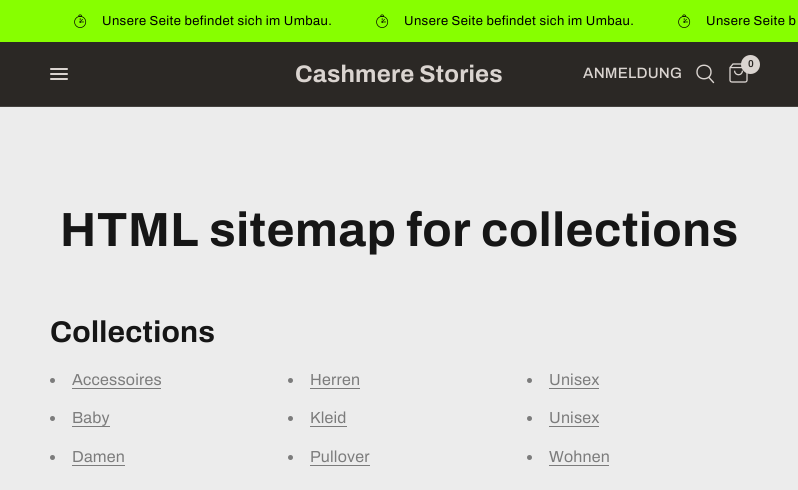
#include <cairo.h>
#include <math.h>
#include <stddef.h>


static void spaced_text(cairo_t *cr, double x, double y, const char *s, double letter, double word) {
    cairo_move_to(cr, x, y);
    while (*s) {
        char ch[5] = {0};
        int n = 0;
        do ch[n++] = *s++; while ((*s & 0xC0) == 0x80);
        cairo_show_text(cr, ch);
        cairo_rel_move_to(cr, letter + word * (*ch == ' '), 0);
    }
}

static void round_rect(cairo_t *cr, double x, double y, double w, double h, double r) {
    cairo_new_sub_path(cr);
    cairo_arc(cr, x + w - r, y + h - r, r, 0, M_PI / 2);
    cairo_arc(cr, x + r, y + h - r, r, M_PI / 2, M_PI);
    cairo_arc(cr, x + r, y + r, r, M_PI, 1.5 * M_PI);
    cairo_arc(cr, x + w - r, y + r, r, 1.5 * M_PI, 2 * M_PI);
    cairo_close_path(cr);
}

static void picture(cairo_t *cr, const char *path, double x, double y, double w, double h) {
    cairo_surface_t *image = cairo_image_surface_create_from_png(path);
    cairo_save(cr);
    cairo_set_source_surface(cr, image, x, y);
    cairo_rectangle(cr, x, y, w, h);
    cairo_fill(cr);
    cairo_restore(cr);
    cairo_surface_destroy(image);
}

int main(void) {
    cairo_surface_t *surface = cairo_image_surface_create(CAIRO_FORMAT_RGB24, 798, 490);
    cairo_t *cr = cairo_create(surface);
    cairo_font_options_t *options = cairo_font_options_create();
    cairo_font_options_set_hint_metrics(options, CAIRO_HINT_METRICS_OFF);
    cairo_font_options_set_hint_style(options, CAIRO_HINT_STYLE_NONE);
    cairo_set_font_options(cr, options);
    cairo_set_miter_limit(cr, 4);
    cairo_set_source_rgb(cr, 0.925, 0.925, 0.925);
    cairo_paint(cr);
    cairo_set_source_rgb(cr, 0.529, 1, 0);
    cairo_rectangle(cr, 0, 0, 798, 42);
    cairo_fill(cr);
    picture(cr, "img1.png", 74, 14, 13, 14);
    cairo_select_font_face(cr, "Archivo", CAIRO_FONT_SLANT_NORMAL, CAIRO_FONT_WEIGHT_NORMAL);
    cairo_set_font_size(cr, 13);
    cairo_set_source_rgb(cr, 0, 0, 0);
    spaced_text(cr, 102, 25, "Unsere Seite befindet sich im Umbau.", 0.4, 0);
    picture(cr, "img1.png", 376, 14, 13, 14);
    spaced_text(cr, 404, 25, "Unsere Seite befindet sich im Umbau.", 0.4, 0);
    picture(cr, "img1.png", 678, 14, 13, 14);
    spaced_text(cr, 706, 25, "Unsere Seite b", 0.4, 0);
    cairo_set_source_rgb(cr, 0.169, 0.157, 0.145);
    cairo_rectangle(cr, 0, 42, 798, 64);
    cairo_fill(cr);
    cairo_set_source_rgb(cr, 0.267, 0.259, 0.247);
    cairo_rectangle(cr, 0, 106, 798, 1);
    cairo_fill(cr);
    cairo_set_source_rgb(cr, 0.855, 0.831, 0.816);
    round_rect(cr, 50, 68, 18, 2, 1);
    cairo_fill(cr);
    round_rect(cr, 50, 73, 18, 2, 1);
    cairo_fill(cr);
    round_rect(cr, 50, 78, 18, 2, 1);
    cairo_fill(cr);
    cairo_select_font_face(cr, "Archivo", CAIRO_FONT_SLANT_NORMAL, CAIRO_FONT_WEIGHT_BOLD);
    cairo_set_font_size(cr, 24);
    spaced_text(cr, 295, 82, "Cashmere Stories", 0.2, 0);
    cairo_select_font_face(cr, "Archivo Medium", CAIRO_FONT_SLANT_NORMAL, CAIRO_FONT_WEIGHT_NORMAL);
    cairo_set_font_size(cr, 15);
    spaced_text(cr, 583, 78, "ANMELDUNG", 0.2, 0);
    cairo_new_path(cr);
    cairo_move_to(cr, 709, 77.5);
    cairo_line_to(cr, 713.5, 82.5);
    cairo_move_to(cr, 711, 72);
    cairo_curve_to(cr, 711, 81, 697, 81, 697, 72);
    cairo_curve_to(cr, 697, 63, 711, 63, 711, 72);
    cairo_close_path(cr);
    cairo_set_line_width(cr, 1.4);
    cairo_set_line_cap(cr, CAIRO_LINE_CAP_ROUND);
    cairo_set_line_join(cr, CAIRO_LINE_JOIN_ROUND);
    cairo_stroke(cr);
    picture(cr, "img2.png", 729, 63, 19, 20);
    cairo_arc(cr, 750.5, 64.5, 9.5, 0, 2 * M_PI);
    cairo_fill(cr);
    cairo_select_font_face(cr, "Archivo SemiBold", CAIRO_FONT_SLANT_NORMAL, CAIRO_FONT_WEIGHT_NORMAL);
    cairo_set_font_size(cr, 10);
    cairo_set_source_rgb(cr, 0.169, 0.157, 0.145);
    spaced_text(cr, 748, 67, "0", 0.2, 0);
    cairo_select_font_face(cr, "Archivo", CAIRO_FONT_SLANT_NORMAL, CAIRO_FONT_WEIGHT_BOLD);
    cairo_set_font_size(cr, 48);
    cairo_set_source_rgb(cr, 0.086, 0.086, 0.086);
    spaced_text(cr, 60, 246, "HTML sitemap for collections", 0.5, 0);
    cairo_set_font_size(cr, 30);
    spaced_text(cr, 50, 342, "Collections", 0.25, 0);
    cairo_set_source_rgb(cr, 0.486, 0.486, 0.486);
    cairo_new_path(cr);
    cairo_arc(cr, 52.5, 380.5, 2.5, 0, 2 * M_PI);
    cairo_fill(cr);
    cairo_select_font_face(cr, "Archivo", CAIRO_FONT_SLANT_NORMAL, CAIRO_FONT_WEIGHT_NORMAL);
    cairo_set_font_size(cr, 16);
    spaced_text(cr, 72, 385, "Accessoires", 0.2, 0);
    cairo_rectangle(cr, 72, 388, 89, 1);
    cairo_fill(cr);
    cairo_arc(cr, 290.5, 380.5, 2.5, 0, 2 * M_PI);
    cairo_fill(cr);
    spaced_text(cr, 310, 385, "Herren", 0.2, 0);
    cairo_rectangle(cr, 310, 388, 50, 1);
    cairo_fill(cr);
    cairo_arc(cr, 529.5, 380.5, 2.5, 0, 2 * M_PI);
    cairo_fill(cr);
    spaced_text(cr, 549, 385, "Unisex", 0.2, 0);
    cairo_rectangle(cr, 549, 388, 50, 1);
    cairo_fill(cr);
    cairo_arc(cr, 52.5, 418.5, 2.5, 0, 2 * M_PI);
    cairo_fill(cr);
    spaced_text(cr, 72, 423, "Baby", 0.2, 0);
    cairo_rectangle(cr, 72, 426, 38, 1);
    cairo_fill(cr);
    cairo_arc(cr, 290.5, 418.5, 2.5, 0, 2 * M_PI);
    cairo_fill(cr);
    spaced_text(cr, 310, 423, "Kleid", 0.2, 0);
    cairo_rectangle(cr, 310, 426, 37, 1);
    cairo_fill(cr);
    cairo_arc(cr, 529.5, 418.5, 2.5, 0, 2 * M_PI);
    cairo_fill(cr);
    spaced_text(cr, 549, 423, "Unisex", 0.2, 0);
    cairo_rectangle(cr, 549, 426, 50, 1);
    cairo_fill(cr);
    cairo_arc(cr, 52.5, 457.5, 2.5, 0, 2 * M_PI);
    cairo_fill(cr);
    spaced_text(cr, 72, 462, "Damen", 0.2, 0);
    cairo_rectangle(cr, 72, 465, 53, 1);
    cairo_fill(cr);
    cairo_arc(cr, 290.5, 457.5, 2.5, 0, 2 * M_PI);
    cairo_fill(cr);
    spaced_text(cr, 310, 462, "Pullover", 0.2, 0);
    cairo_rectangle(cr, 310, 465, 60, 1);
    cairo_fill(cr);
    cairo_arc(cr, 529.5, 457.5, 2.5, 0, 2 * M_PI);
    cairo_fill(cr);
    spaced_text(cr, 549, 462, "Wohnen", 0.2, 0);
    cairo_rectangle(cr, 549, 465, 60, 1);
    cairo_fill(cr);
    cairo_surface_write_to_png(surface, "page.png");
    cairo_font_options_destroy(options);
    cairo_destroy(cr);
    cairo_surface_destroy(surface);
    return 0;
}
